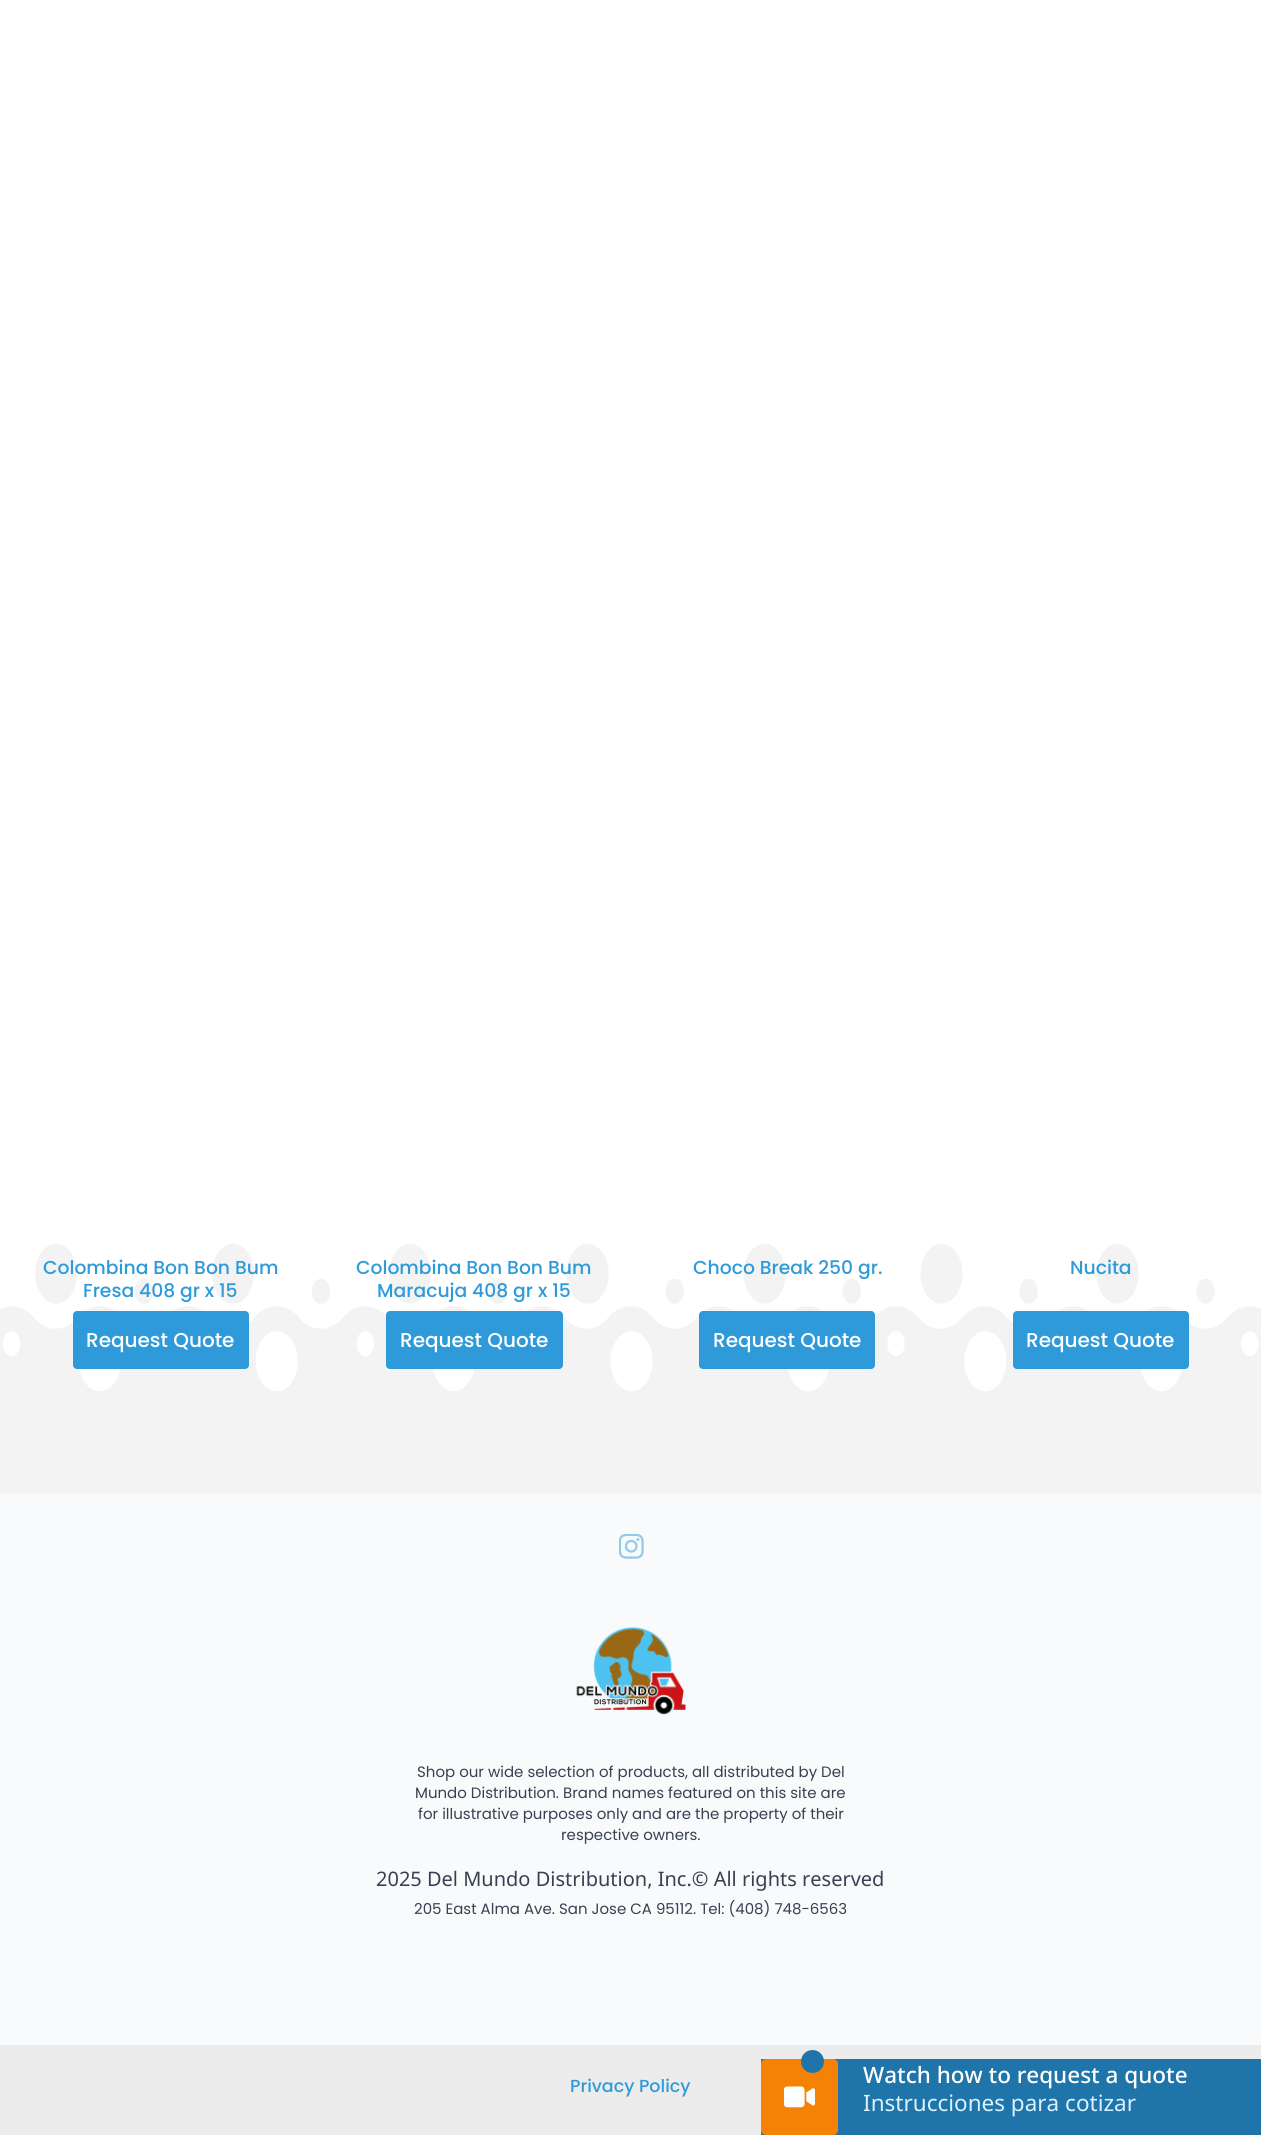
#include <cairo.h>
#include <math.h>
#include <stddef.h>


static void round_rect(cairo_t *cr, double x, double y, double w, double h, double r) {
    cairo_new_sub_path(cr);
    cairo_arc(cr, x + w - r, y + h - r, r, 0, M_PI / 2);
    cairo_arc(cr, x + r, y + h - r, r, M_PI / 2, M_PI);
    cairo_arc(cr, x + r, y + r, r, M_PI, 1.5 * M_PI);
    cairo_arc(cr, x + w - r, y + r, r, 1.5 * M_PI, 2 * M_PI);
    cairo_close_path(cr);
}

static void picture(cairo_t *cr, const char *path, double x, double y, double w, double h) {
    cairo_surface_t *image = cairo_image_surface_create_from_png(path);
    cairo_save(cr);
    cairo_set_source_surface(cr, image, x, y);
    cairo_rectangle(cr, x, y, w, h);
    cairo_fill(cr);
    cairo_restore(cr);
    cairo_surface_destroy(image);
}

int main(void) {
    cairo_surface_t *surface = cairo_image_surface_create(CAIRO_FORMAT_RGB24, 1261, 2135);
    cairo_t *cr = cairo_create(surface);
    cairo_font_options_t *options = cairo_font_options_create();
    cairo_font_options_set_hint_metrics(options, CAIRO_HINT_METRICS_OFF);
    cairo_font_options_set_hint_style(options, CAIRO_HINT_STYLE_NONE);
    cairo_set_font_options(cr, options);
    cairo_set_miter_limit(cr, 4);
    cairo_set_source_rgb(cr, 0.976, 0.98, 0.984);
    cairo_paint(cr);
    cairo_set_source_rgb(cr, 1, 1, 1);
    cairo_rectangle(cr, 0, 0, 1261, 1494);
    cairo_fill(cr);
    picture(cr, "img1.png", 0, 1244, 1261, 250);
    cairo_select_font_face(cr, "Poppins Medium", CAIRO_FONT_SLANT_NORMAL, CAIRO_FONT_WEIGHT_NORMAL);
    cairo_set_font_size(cr, 18.75);
    cairo_set_source_rgb(cr, 0.18, 0.604, 0.855);
    cairo_move_to(cr, 43, 1274);
    cairo_show_text(cr, "Colombina Bon Bon Bum");
    cairo_move_to(cr, 83, 1297);
    cairo_show_text(cr, "Fresa 408 gr x 15");
    round_rect(cr, 73, 1311, 176, 58, 4);
    cairo_fill(cr);
    cairo_set_font_size(cr, 20);
    cairo_set_source_rgb(cr, 1, 1, 1);
    cairo_move_to(cr, 86, 1347);
    cairo_show_text(cr, "Request Quote");
    cairo_set_font_size(cr, 18.75);
    cairo_set_source_rgb(cr, 0.18, 0.604, 0.855);
    cairo_move_to(cr, 356, 1274);
    cairo_show_text(cr, "Colombina Bon Bon Bum");
    cairo_move_to(cr, 377, 1297);
    cairo_show_text(cr, "Maracuja 408 gr x 15");
    round_rect(cr, 386, 1311, 177, 58, 4);
    cairo_fill(cr);
    cairo_set_font_size(cr, 20);
    cairo_set_source_rgb(cr, 1, 1, 1);
    cairo_move_to(cr, 400, 1347);
    cairo_show_text(cr, "Request Quote");
    cairo_set_font_size(cr, 18.75);
    cairo_set_source_rgb(cr, 0.18, 0.604, 0.855);
    cairo_move_to(cr, 693, 1274);
    cairo_show_text(cr, "Choco Break 250 gr.");
    round_rect(cr, 699, 1311, 176, 58, 4);
    cairo_fill(cr);
    cairo_set_font_size(cr, 20);
    cairo_set_source_rgb(cr, 1, 1, 1);
    cairo_move_to(cr, 713, 1347);
    cairo_show_text(cr, "Request Quote");
    cairo_set_font_size(cr, 18.75);
    cairo_set_source_rgb(cr, 0.18, 0.604, 0.855);
    cairo_move_to(cr, 1070, 1274);
    cairo_show_text(cr, "Nucita");
    round_rect(cr, 1013, 1311, 176, 58, 4);
    cairo_fill(cr);
    cairo_set_font_size(cr, 20);
    cairo_set_source_rgb(cr, 1, 1, 1);
    cairo_move_to(cr, 1026, 1347);
    cairo_show_text(cr, "Request Quote");
    picture(cr, "img2.png", 619, 1534, 25, 25);
    picture(cr, "img3.png", 576, 1626, 110, 89);
    cairo_select_font_face(cr, "Poppins", CAIRO_FONT_SLANT_NORMAL, CAIRO_FONT_WEIGHT_NORMAL);
    cairo_set_font_size(cr, 15);
    cairo_set_source_rgb(cr, 0.216, 0.255, 0.318);
    cairo_move_to(cr, 417, 1777);
    cairo_show_text(cr, "Shop our wide selection of products, all distributed by Del");
    cairo_move_to(cr, 415, 1798);
    cairo_show_text(cr, "Mundo Distribution. Brand names featured on this site are");
    cairo_move_to(cr, 418, 1819);
    cairo_show_text(cr, "for illustrative purposes only and are the property of their");
    cairo_move_to(cr, 561, 1840);
    cairo_show_text(cr, "respective owners.");
    cairo_select_font_face(cr, "Noto Sans", CAIRO_FONT_SLANT_NORMAL, CAIRO_FONT_WEIGHT_NORMAL);
    cairo_set_font_size(cr, 20);
    cairo_move_to(cr, 376, 1886);
    cairo_show_text(cr, "2025 Del Mundo Distribution, Inc.© All rights reserved");
    cairo_select_font_face(cr, "Poppins", CAIRO_FONT_SLANT_NORMAL, CAIRO_FONT_WEIGHT_NORMAL);
    cairo_set_font_size(cr, 15);
    cairo_move_to(cr, 414, 1914);
    cairo_show_text(cr, "205 East Alma Ave. San Jose CA 95112. Tel: (408) 748-6563");
    cairo_set_source_rgb(cr, 0.925, 0.925, 0.925);
    cairo_rectangle(cr, 0, 2045, 1261, 90);
    cairo_fill(cr);
    cairo_select_font_face(cr, "Poppins Medium", CAIRO_FONT_SLANT_NORMAL, CAIRO_FONT_WEIGHT_NORMAL);
    cairo_set_font_size(cr, 17.5);
    cairo_set_source_rgb(cr, 0.18, 0.604, 0.855);
    cairo_move_to(cr, 570, 2092);
    cairo_show_text(cr, "Privacy Policy");
    cairo_set_source_rgb(cr, 0.122, 0.459, 0.663);
    cairo_rectangle(cr, 761, 2059, 500, 76);
    cairo_fill(cr);
    cairo_set_source_rgb(cr, 0.961, 0.51, 0.02);
    round_rect(cr, 761, 2059, 77, 76, 5);
    cairo_fill(cr);
    cairo_set_source_rgb(cr, 0.122, 0.459, 0.663);
    cairo_arc(cr, 812.5, 2061.5, 11.5, 0, 2 * M_PI);
    cairo_fill(cr);
    picture(cr, "img4.png", 784, 2086, 31, 22);
    cairo_select_font_face(cr, "Noto Sans Medium", CAIRO_FONT_SLANT_NORMAL, CAIRO_FONT_WEIGHT_NORMAL);
    cairo_set_font_size(cr, 22.5);
    cairo_set_source_rgb(cr, 1, 1, 1);
    cairo_move_to(cr, 863, 2083);
    cairo_show_text(cr, "Watch how to request a quote");
    cairo_select_font_face(cr, "Noto Sans", CAIRO_FONT_SLANT_NORMAL, CAIRO_FONT_WEIGHT_NORMAL);
    cairo_set_source_rgb(cr, 0.855, 0.945, 1);
    cairo_move_to(cr, 863, 2111);
    cairo_show_text(cr, "Instrucciones para cotizar");
    cairo_surface_write_to_png(surface, "page.png");
    cairo_font_options_destroy(options);
    cairo_destroy(cr);
    cairo_surface_destroy(surface);
    return 0;
}
